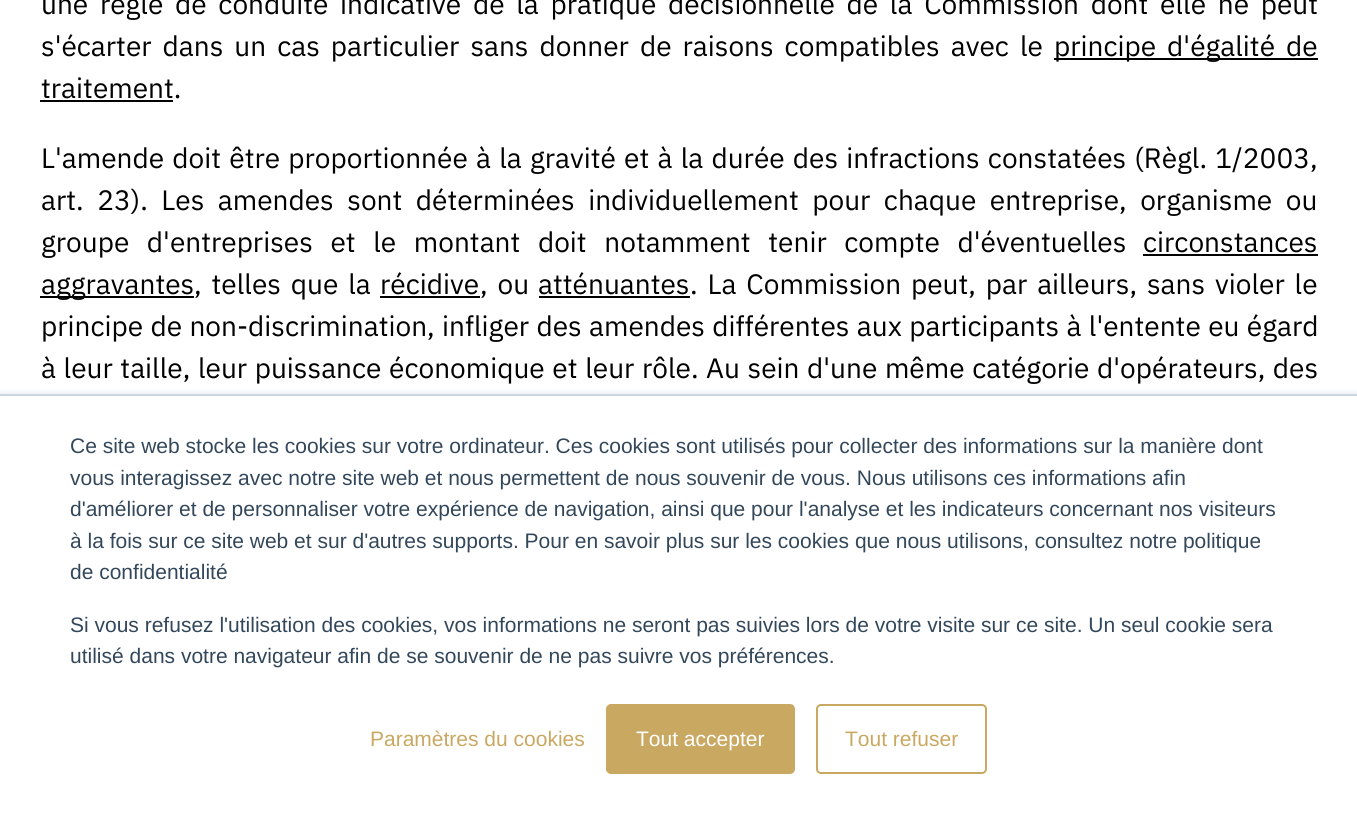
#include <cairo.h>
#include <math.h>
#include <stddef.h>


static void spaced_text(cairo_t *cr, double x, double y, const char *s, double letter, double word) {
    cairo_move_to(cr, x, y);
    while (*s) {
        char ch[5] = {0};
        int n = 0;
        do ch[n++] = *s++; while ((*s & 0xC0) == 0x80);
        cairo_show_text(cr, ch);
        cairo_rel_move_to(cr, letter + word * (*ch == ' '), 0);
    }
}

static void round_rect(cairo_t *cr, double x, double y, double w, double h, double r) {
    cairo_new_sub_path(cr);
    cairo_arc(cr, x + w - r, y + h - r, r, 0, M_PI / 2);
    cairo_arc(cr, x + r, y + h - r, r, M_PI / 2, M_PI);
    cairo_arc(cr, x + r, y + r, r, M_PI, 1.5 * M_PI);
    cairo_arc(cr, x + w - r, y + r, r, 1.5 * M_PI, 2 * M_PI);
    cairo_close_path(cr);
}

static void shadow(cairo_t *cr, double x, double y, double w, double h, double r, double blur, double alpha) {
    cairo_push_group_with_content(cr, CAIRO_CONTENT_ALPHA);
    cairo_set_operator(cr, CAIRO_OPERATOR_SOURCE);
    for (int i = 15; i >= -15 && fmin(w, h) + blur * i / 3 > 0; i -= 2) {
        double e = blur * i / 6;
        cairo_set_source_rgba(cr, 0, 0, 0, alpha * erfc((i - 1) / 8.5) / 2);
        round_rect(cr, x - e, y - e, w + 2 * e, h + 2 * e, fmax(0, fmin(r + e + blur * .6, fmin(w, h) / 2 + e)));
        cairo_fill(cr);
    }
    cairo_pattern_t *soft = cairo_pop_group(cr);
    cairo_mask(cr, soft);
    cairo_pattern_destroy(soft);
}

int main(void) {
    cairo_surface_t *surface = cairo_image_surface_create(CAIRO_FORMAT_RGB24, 1357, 819);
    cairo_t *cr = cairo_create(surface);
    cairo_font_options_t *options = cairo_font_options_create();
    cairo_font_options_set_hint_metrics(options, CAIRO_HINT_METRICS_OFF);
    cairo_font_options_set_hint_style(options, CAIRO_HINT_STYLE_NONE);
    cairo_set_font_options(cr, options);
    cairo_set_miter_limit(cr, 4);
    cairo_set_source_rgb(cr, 1, 1, 1);
    cairo_paint(cr);
    cairo_select_font_face(cr, "IBM Plex Sans", CAIRO_FONT_SLANT_NORMAL, CAIRO_FONT_WEIGHT_NORMAL);
    cairo_set_font_size(cr, 28);
    cairo_set_source_rgb(cr, 0, 0, 0);
    spaced_text(cr, 41, 14, "une règle de conduite indicative de la pratique décisionnelle de la Commission dont elle ne peut", 0, 5.1);
    spaced_text(cr, 41, 56, "s'écarter dans un cas particulier sans donner de raisons compatibles avec le", 0, 4.4);
    cairo_rectangle(cr, 1054, 58, 264, 2);
    cairo_fill(cr);
    spaced_text(cr, 1054, 56, "principe d'égalité de", 0, 4.4);
    cairo_move_to(cr, 41, 98);
    cairo_show_text(cr, "traitement.");
    cairo_rectangle(cr, 40, 100, 133, 2);
    cairo_fill(cr);
    spaced_text(cr, 41, 168, "L'amende doit être proportionnée à la gravité et à la durée des infractions constatées (Règl. 1/2003,", 0, 1.6);
    spaced_text(cr, 41, 210, "art. 23). Les amendes sont déterminées individuellement pour chaque entreprise, organisme ou", 0, 6.9);
    spaced_text(cr, 41, 252, "groupe d'entreprises et le montant doit notamment tenir compte d'éventuelles", 0, 11);
    cairo_move_to(cr, 1143, 252);
    cairo_show_text(cr, "circonstances");
    cairo_rectangle(cr, 1143, 254, 175, 2);
    cairo_fill(cr);
    cairo_rectangle(cr, 40, 296, 154, 2);
    cairo_fill(cr);
    cairo_move_to(cr, 41, 294);
    cairo_show_text(cr, "aggravantes");
    spaced_text(cr, 194, 294, ", telles que la", 0, 3.25);
    cairo_move_to(cr, 380, 294);
    cairo_show_text(cr, "récidive");
    cairo_rectangle(cr, 380, 296, 100, 2);
    cairo_fill(cr);
    spaced_text(cr, 480, 294, ", ou", 0, 3.25);
    cairo_move_to(cr, 538, 294);
    cairo_show_text(cr, "atténuantes");
    cairo_rectangle(cr, 539, 296, 151, 2);
    cairo_fill(cr);
    spaced_text(cr, 690, 294, ". La Commission peut, par ailleurs, sans violer le", 0, 3.25);
    spaced_text(cr, 41, 336, "principe de non-discrimination, infliger des amendes différentes aux participants à l'entente eu égard", 0, 0.75);
    spaced_text(cr, 41, 378, "à leur taille, leur puissance économique et leur rôle. Au sein d'une même catégorie d'opérateurs, des", 0, 1);
    cairo_set_source_rgb(cr, 0.918, 0.941, 0.965);
    shadow(cr, 0, 392, 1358, 425, 0, 2.5, 1);
    cairo_set_source_rgb(cr, 1, 1, 1);
    cairo_rectangle(cr, 0, 396, 1357, 423);
    cairo_fill(cr);
    cairo_set_source_rgb(cr, 0.796, 0.839, 0.886);
    cairo_rectangle(cr, 0, 394, 1357, 2);
    cairo_fill(cr);
    cairo_select_font_face(cr, "Liberation Sans", CAIRO_FONT_SLANT_NORMAL, CAIRO_FONT_WEIGHT_NORMAL);
    cairo_set_font_size(cr, 21);
    cairo_set_source_rgb(cr, 0.2, 0.278, 0.357);
    cairo_move_to(cr, 70, 453);
    cairo_show_text(cr, "Ce site web stocke les cookies sur votre ordinateur. Ces cookies sont utilisés pour collecter des informations sur la manière dont");
    cairo_move_to(cr, 70, 485);
    cairo_show_text(cr, "vous interagissez avec notre site web et nous permettent de nous souvenir de vous. Nous utilisons ces informations afin");
    cairo_move_to(cr, 70, 516);
    cairo_show_text(cr, "d'améliorer et de personnaliser votre expérience de navigation, ainsi que pour l'analyse et les indicateurs concernant nos visiteurs");
    cairo_move_to(cr, 70, 548);
    cairo_show_text(cr, "à la fois sur ce site web et sur d'autres supports. Pour en savoir plus sur les cookies que nous utilisons, consultez notre politique");
    cairo_move_to(cr, 70, 579);
    cairo_show_text(cr, "de confidentialité");
    cairo_move_to(cr, 70, 632);
    cairo_show_text(cr, "Si vous refusez l'utilisation des cookies, vos informations ne seront pas suivies lors de votre visite sur ce site. Un seul cookie sera");
    cairo_move_to(cr, 70, 663);
    cairo_show_text(cr, "utilisé dans votre navigateur afin de se souvenir de ne pas suivre vos préférences.");
    cairo_set_source_rgb(cr, 0.788, 0.659, 0.38);
    cairo_move_to(cr, 370, 746);
    cairo_show_text(cr, "Paramètres du cookies");
    round_rect(cr, 607, 705, 187, 68, 4);
    cairo_fill_preserve(cr);
    cairo_stroke(cr);
    cairo_set_source_rgb(cr, 1, 1, 1);
    cairo_move_to(cr, 636, 746);
    cairo_show_text(cr, "Tout accepter");
    round_rect(cr, 817, 705, 169, 68, 4);
    cairo_set_source_rgb(cr, 0.788, 0.659, 0.38);
    cairo_stroke(cr);
    cairo_move_to(cr, 845, 746);
    cairo_show_text(cr, "Tout refuser");
    cairo_surface_write_to_png(surface, "page.png");
    cairo_font_options_destroy(options);
    cairo_destroy(cr);
    cairo_surface_destroy(surface);
    return 0;
}
